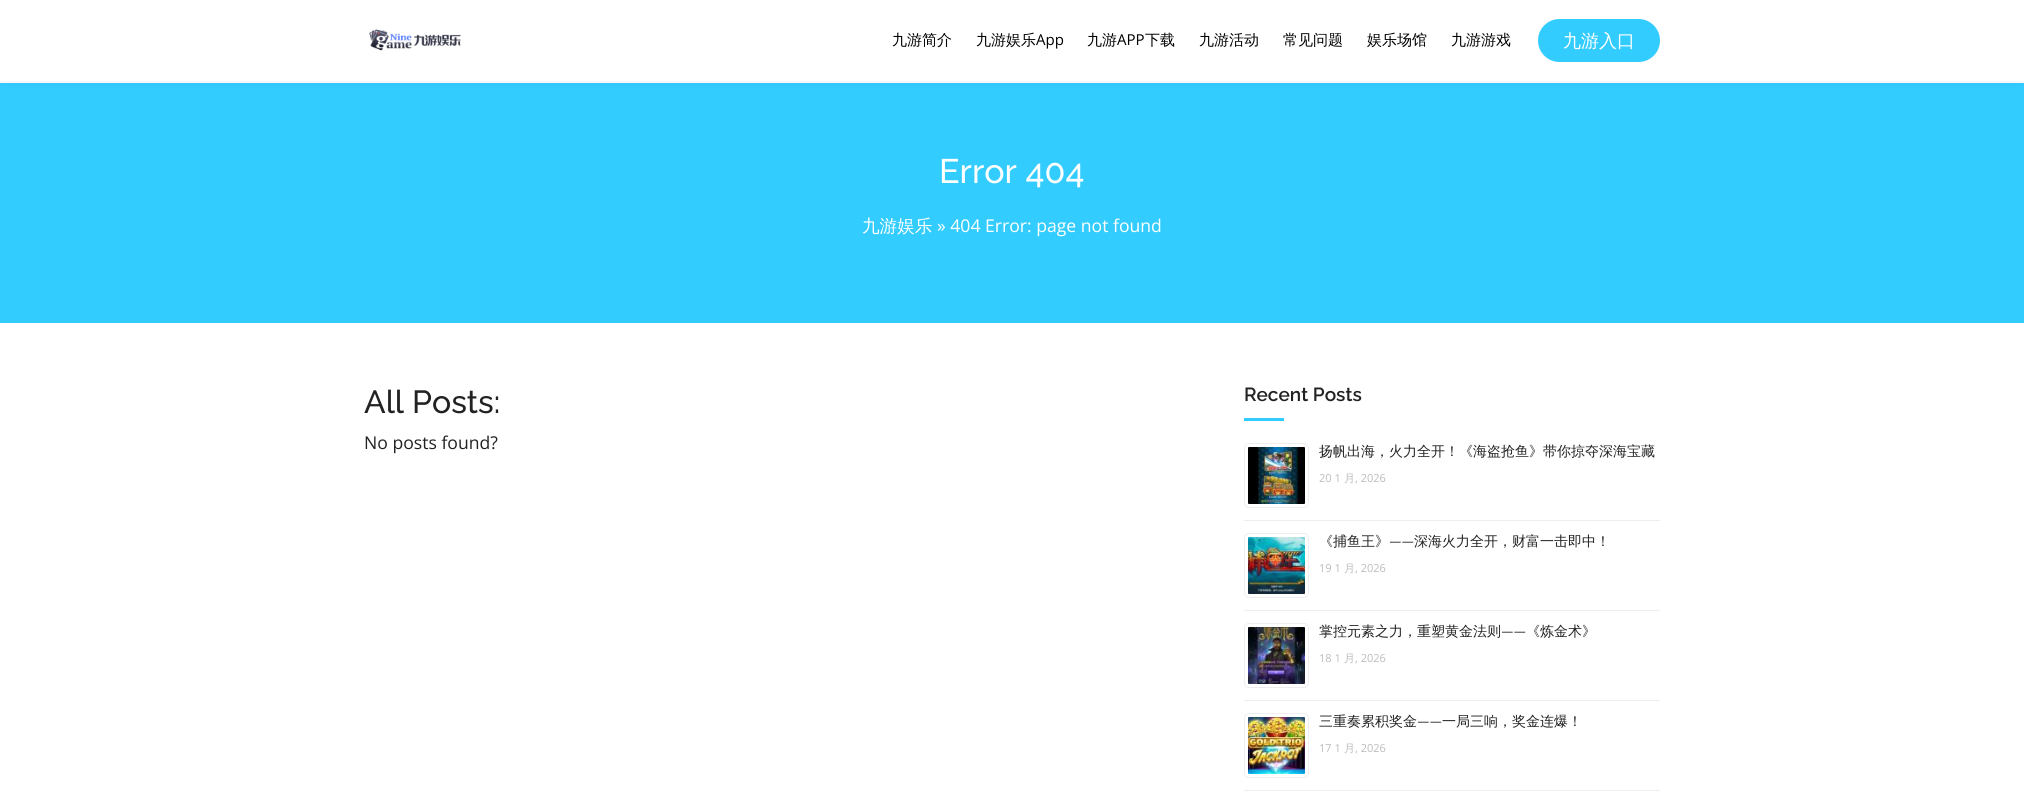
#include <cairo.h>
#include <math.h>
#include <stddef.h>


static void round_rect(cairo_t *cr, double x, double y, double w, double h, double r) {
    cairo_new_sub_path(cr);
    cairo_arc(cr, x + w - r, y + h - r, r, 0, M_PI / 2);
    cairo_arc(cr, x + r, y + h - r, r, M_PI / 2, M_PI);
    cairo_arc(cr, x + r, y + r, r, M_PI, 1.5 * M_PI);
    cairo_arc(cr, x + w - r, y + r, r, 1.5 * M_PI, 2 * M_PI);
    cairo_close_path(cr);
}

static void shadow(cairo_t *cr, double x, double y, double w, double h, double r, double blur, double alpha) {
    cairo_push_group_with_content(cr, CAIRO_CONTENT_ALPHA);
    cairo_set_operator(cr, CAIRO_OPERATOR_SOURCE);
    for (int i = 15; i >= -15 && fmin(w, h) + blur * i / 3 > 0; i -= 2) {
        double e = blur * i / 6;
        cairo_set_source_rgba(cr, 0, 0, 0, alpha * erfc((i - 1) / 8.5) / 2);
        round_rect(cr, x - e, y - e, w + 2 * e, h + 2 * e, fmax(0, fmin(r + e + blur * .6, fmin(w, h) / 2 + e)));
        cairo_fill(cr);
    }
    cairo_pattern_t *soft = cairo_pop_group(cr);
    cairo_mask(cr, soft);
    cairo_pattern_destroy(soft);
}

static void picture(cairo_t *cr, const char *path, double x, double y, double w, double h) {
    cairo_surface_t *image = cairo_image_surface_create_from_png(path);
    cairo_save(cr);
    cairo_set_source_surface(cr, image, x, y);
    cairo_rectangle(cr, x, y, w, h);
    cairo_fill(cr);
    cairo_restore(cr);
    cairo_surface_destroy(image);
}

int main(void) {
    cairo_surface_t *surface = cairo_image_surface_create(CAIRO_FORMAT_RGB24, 2024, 801);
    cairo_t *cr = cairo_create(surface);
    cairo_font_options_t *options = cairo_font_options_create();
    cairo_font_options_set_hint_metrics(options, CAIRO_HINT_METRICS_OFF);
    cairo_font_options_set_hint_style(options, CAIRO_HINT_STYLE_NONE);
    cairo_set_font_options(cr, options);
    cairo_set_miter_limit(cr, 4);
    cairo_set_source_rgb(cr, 1, 1, 1);
    cairo_paint(cr);
    cairo_set_source_rgb(cr, 0.2, 0.8, 1);
    cairo_rectangle(cr, 0, 83, 2024, 240);
    cairo_fill(cr);
    cairo_save(cr);
    cairo_rectangle(cr, 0, 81, 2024, 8);
    cairo_clip(cr);
    cairo_set_source_rgb(cr, 0.098, 0.467, 0.8);
    shadow(cr, 0, 2, 2024, 81, 0, 7.5, 0.1);
    cairo_restore(cr);
    picture(cr, "img1.png", 369, 29, 92, 22);
    cairo_select_font_face(cr, "WenQuanYi Zen Hei Medium", CAIRO_FONT_SLANT_NORMAL, CAIRO_FONT_WEIGHT_NORMAL);
    cairo_set_font_size(cr, 15);
    cairo_set_source_rgb(cr, 0, 0, 0);
    cairo_move_to(cr, 892, 45);
    cairo_show_text(cr, "九游简介");
    cairo_move_to(cr, 976, 45);
    cairo_show_text(cr, "九游娱乐");
    cairo_select_font_face(cr, "Open Sans", CAIRO_FONT_SLANT_NORMAL, CAIRO_FONT_WEIGHT_NORMAL);
    cairo_move_to(cr, 1036, 45);
    cairo_show_text(cr, "App");
    cairo_select_font_face(cr, "WenQuanYi Zen Hei Medium", CAIRO_FONT_SLANT_NORMAL, CAIRO_FONT_WEIGHT_NORMAL);
    cairo_move_to(cr, 1087, 45);
    cairo_show_text(cr, "九游");
    cairo_select_font_face(cr, "Open Sans", CAIRO_FONT_SLANT_NORMAL, CAIRO_FONT_WEIGHT_NORMAL);
    cairo_move_to(cr, 1117, 45);
    cairo_show_text(cr, "APP");
    cairo_select_font_face(cr, "WenQuanYi Zen Hei Medium", CAIRO_FONT_SLANT_NORMAL, CAIRO_FONT_WEIGHT_NORMAL);
    cairo_move_to(cr, 1145, 45);
    cairo_show_text(cr, "下载");
    cairo_move_to(cr, 1199, 45);
    cairo_show_text(cr, "九游活动");
    cairo_move_to(cr, 1283, 45);
    cairo_show_text(cr, "常见问题");
    cairo_move_to(cr, 1367, 45);
    cairo_show_text(cr, "娱乐场馆");
    cairo_move_to(cr, 1451, 45);
    cairo_show_text(cr, "九游游戏");
    cairo_set_source_rgb(cr, 0.2, 0.8, 1);
    round_rect(cr, 1538, 19, 122, 43, 21.5);
    cairo_fill(cr);
    cairo_set_font_size(cr, 18);
    cairo_set_source_rgb(cr, 1, 1, 1);
    cairo_move_to(cr, 1563, 47);
    cairo_show_text(cr, "九游入口");
    cairo_select_font_face(cr, "Raleway Medium", CAIRO_FONT_SLANT_NORMAL, CAIRO_FONT_WEIGHT_NORMAL);
    cairo_set_font_size(cr, 34);
    cairo_move_to(cr, 939, 183);
    cairo_show_text(cr, "Error 404");
    cairo_select_font_face(cr, "WenQuanYi Zen Hei Medium", CAIRO_FONT_SLANT_NORMAL, CAIRO_FONT_WEIGHT_NORMAL);
    cairo_set_font_size(cr, 17.6);
    cairo_move_to(cr, 862, 232);
    cairo_show_text(cr, "九游娱乐");
    cairo_select_font_face(cr, "Open Sans", CAIRO_FONT_SLANT_NORMAL, CAIRO_FONT_WEIGHT_NORMAL);
    cairo_move_to(cr, 937, 232);
    cairo_show_text(cr, "» 404 Error: page not found");
    cairo_select_font_face(cr, "Raleway Medium", CAIRO_FONT_SLANT_NORMAL, CAIRO_FONT_WEIGHT_NORMAL);
    cairo_set_font_size(cr, 32);
    cairo_set_source_rgb(cr, 0.133, 0.133, 0.133);
    cairo_move_to(cr, 364, 413);
    cairo_show_text(cr, "All Posts:");
    cairo_select_font_face(cr, "Open Sans", CAIRO_FONT_SLANT_NORMAL, CAIRO_FONT_WEIGHT_NORMAL);
    cairo_set_font_size(cr, 17.6);
    cairo_move_to(cr, 364, 449);
    cairo_show_text(cr, "No posts found?");
    cairo_select_font_face(cr, "Raleway SemiBold", CAIRO_FONT_SLANT_NORMAL, CAIRO_FONT_WEIGHT_NORMAL);
    cairo_set_font_size(cr, 19);
    cairo_move_to(cr, 1244, 401);
    cairo_show_text(cr, "Recent Posts");
    cairo_set_source_rgb(cr, 0.2, 0.8, 1);
    cairo_rectangle(cr, 1244, 418, 40, 3);
    cairo_fill(cr);
    cairo_set_source_rgb(cr, 0.933, 0.933, 0.933);
    cairo_rectangle(cr, 1244, 520, 416, 1);
    cairo_fill(cr);
    round_rect(cr, 1244.5, 443.5, 64, 64, 4.5);
    cairo_set_line_width(cr, 1);
    cairo_stroke(cr);
    picture(cr, "img2.png", 1248, 447, 57, 57);
    cairo_select_font_face(cr, "WenQuanYi Zen Hei Medium", CAIRO_FONT_SLANT_NORMAL, CAIRO_FONT_WEIGHT_NORMAL);
    cairo_set_font_size(cr, 14);
    cairo_set_source_rgb(cr, 0.133, 0.133, 0.133);
    cairo_move_to(cr, 1319, 456);
    cairo_show_text(cr, "扬帆出海，火力全开！《海盗抢鱼》带你掠夺深海宝藏");
    cairo_select_font_face(cr, "Open Sans", CAIRO_FONT_SLANT_NORMAL, CAIRO_FONT_WEIGHT_NORMAL);
    cairo_set_font_size(cr, 11);
    cairo_set_source_rgb(cr, 0.733, 0.733, 0.733);
    cairo_move_to(cr, 1319, 482);
    cairo_show_text(cr, "20 1");
    cairo_select_font_face(cr, "WenQuanYi Zen Hei Medium", CAIRO_FONT_SLANT_NORMAL, CAIRO_FONT_WEIGHT_NORMAL);
    cairo_move_to(cr, 1344, 482);
    cairo_show_text(cr, "月");
    cairo_select_font_face(cr, "Open Sans", CAIRO_FONT_SLANT_NORMAL, CAIRO_FONT_WEIGHT_NORMAL);
    cairo_move_to(cr, 1355, 482);
    cairo_show_text(cr, ", 2026");
    cairo_set_source_rgb(cr, 0.933, 0.933, 0.933);
    cairo_rectangle(cr, 1244, 610, 416, 1);
    cairo_fill(cr);
    round_rect(cr, 1244.5, 533.5, 64, 64, 4.5);
    cairo_stroke(cr);
    picture(cr, "img3.png", 1248, 537, 57, 57);
    cairo_select_font_face(cr, "WenQuanYi Zen Hei Medium", CAIRO_FONT_SLANT_NORMAL, CAIRO_FONT_WEIGHT_NORMAL);
    cairo_set_font_size(cr, 14);
    cairo_set_source_rgb(cr, 0.133, 0.133, 0.133);
    cairo_move_to(cr, 1319, 546);
    cairo_show_text(cr, "《捕鱼王》");
    cairo_select_font_face(cr, "Raleway", CAIRO_FONT_SLANT_NORMAL, CAIRO_FONT_WEIGHT_NORMAL);
    cairo_move_to(cr, 1389, 546);
    cairo_show_text(cr, "——");
    cairo_select_font_face(cr, "WenQuanYi Zen Hei Medium", CAIRO_FONT_SLANT_NORMAL, CAIRO_FONT_WEIGHT_NORMAL);
    cairo_move_to(cr, 1414, 546);
    cairo_show_text(cr, "深海火力全开，财富一击即中！");
    cairo_select_font_face(cr, "Open Sans", CAIRO_FONT_SLANT_NORMAL, CAIRO_FONT_WEIGHT_NORMAL);
    cairo_set_font_size(cr, 11);
    cairo_set_source_rgb(cr, 0.733, 0.733, 0.733);
    cairo_move_to(cr, 1319, 572);
    cairo_show_text(cr, "19 1");
    cairo_select_font_face(cr, "WenQuanYi Zen Hei Medium", CAIRO_FONT_SLANT_NORMAL, CAIRO_FONT_WEIGHT_NORMAL);
    cairo_move_to(cr, 1344, 572);
    cairo_show_text(cr, "月");
    cairo_select_font_face(cr, "Open Sans", CAIRO_FONT_SLANT_NORMAL, CAIRO_FONT_WEIGHT_NORMAL);
    cairo_move_to(cr, 1355, 572);
    cairo_show_text(cr, ", 2026");
    cairo_set_source_rgb(cr, 0.933, 0.933, 0.933);
    cairo_rectangle(cr, 1244, 700, 416, 1);
    cairo_fill(cr);
    round_rect(cr, 1244.5, 623.5, 64, 64, 4.5);
    cairo_stroke(cr);
    picture(cr, "img4.png", 1248, 627, 57, 57);
    cairo_select_font_face(cr, "WenQuanYi Zen Hei Medium", CAIRO_FONT_SLANT_NORMAL, CAIRO_FONT_WEIGHT_NORMAL);
    cairo_set_font_size(cr, 14);
    cairo_set_source_rgb(cr, 0.133, 0.133, 0.133);
    cairo_move_to(cr, 1319, 636);
    cairo_show_text(cr, "掌控元素之力，重塑黄金法则");
    cairo_select_font_face(cr, "Raleway", CAIRO_FONT_SLANT_NORMAL, CAIRO_FONT_WEIGHT_NORMAL);
    cairo_move_to(cr, 1501, 636);
    cairo_show_text(cr, "——");
    cairo_select_font_face(cr, "WenQuanYi Zen Hei Medium", CAIRO_FONT_SLANT_NORMAL, CAIRO_FONT_WEIGHT_NORMAL);
    cairo_move_to(cr, 1526, 636);
    cairo_show_text(cr, "《炼金术》");
    cairo_select_font_face(cr, "Open Sans", CAIRO_FONT_SLANT_NORMAL, CAIRO_FONT_WEIGHT_NORMAL);
    cairo_set_font_size(cr, 11);
    cairo_set_source_rgb(cr, 0.733, 0.733, 0.733);
    cairo_move_to(cr, 1319, 662);
    cairo_show_text(cr, "18 1");
    cairo_select_font_face(cr, "WenQuanYi Zen Hei Medium", CAIRO_FONT_SLANT_NORMAL, CAIRO_FONT_WEIGHT_NORMAL);
    cairo_move_to(cr, 1344, 662);
    cairo_show_text(cr, "月");
    cairo_select_font_face(cr, "Open Sans", CAIRO_FONT_SLANT_NORMAL, CAIRO_FONT_WEIGHT_NORMAL);
    cairo_move_to(cr, 1355, 662);
    cairo_show_text(cr, ", 2026");
    cairo_set_source_rgb(cr, 0.933, 0.933, 0.933);
    cairo_rectangle(cr, 1244, 790, 416, 1);
    cairo_fill(cr);
    round_rect(cr, 1244.5, 713.5, 64, 64, 4.5);
    cairo_stroke(cr);
    picture(cr, "img5.png", 1248, 717, 57, 57);
    cairo_select_font_face(cr, "WenQuanYi Zen Hei Medium", CAIRO_FONT_SLANT_NORMAL, CAIRO_FONT_WEIGHT_NORMAL);
    cairo_set_font_size(cr, 14);
    cairo_set_source_rgb(cr, 0.133, 0.133, 0.133);
    cairo_move_to(cr, 1319, 726);
    cairo_show_text(cr, "三重奏累积奖金");
    cairo_select_font_face(cr, "Raleway", CAIRO_FONT_SLANT_NORMAL, CAIRO_FONT_WEIGHT_NORMAL);
    cairo_move_to(cr, 1417, 726);
    cairo_show_text(cr, "——");
    cairo_select_font_face(cr, "WenQuanYi Zen Hei Medium", CAIRO_FONT_SLANT_NORMAL, CAIRO_FONT_WEIGHT_NORMAL);
    cairo_move_to(cr, 1442, 726);
    cairo_show_text(cr, "一局三响，奖金连爆！");
    cairo_select_font_face(cr, "Open Sans", CAIRO_FONT_SLANT_NORMAL, CAIRO_FONT_WEIGHT_NORMAL);
    cairo_set_font_size(cr, 11);
    cairo_set_source_rgb(cr, 0.733, 0.733, 0.733);
    cairo_move_to(cr, 1319, 752);
    cairo_show_text(cr, "17 1");
    cairo_select_font_face(cr, "WenQuanYi Zen Hei Medium", CAIRO_FONT_SLANT_NORMAL, CAIRO_FONT_WEIGHT_NORMAL);
    cairo_move_to(cr, 1344, 752);
    cairo_show_text(cr, "月");
    cairo_select_font_face(cr, "Open Sans", CAIRO_FONT_SLANT_NORMAL, CAIRO_FONT_WEIGHT_NORMAL);
    cairo_move_to(cr, 1355, 752);
    cairo_show_text(cr, ", 2026");
    cairo_surface_write_to_png(surface, "page.png");
    cairo_font_options_destroy(options);
    cairo_destroy(cr);
    cairo_surface_destroy(surface);
    return 0;
}
